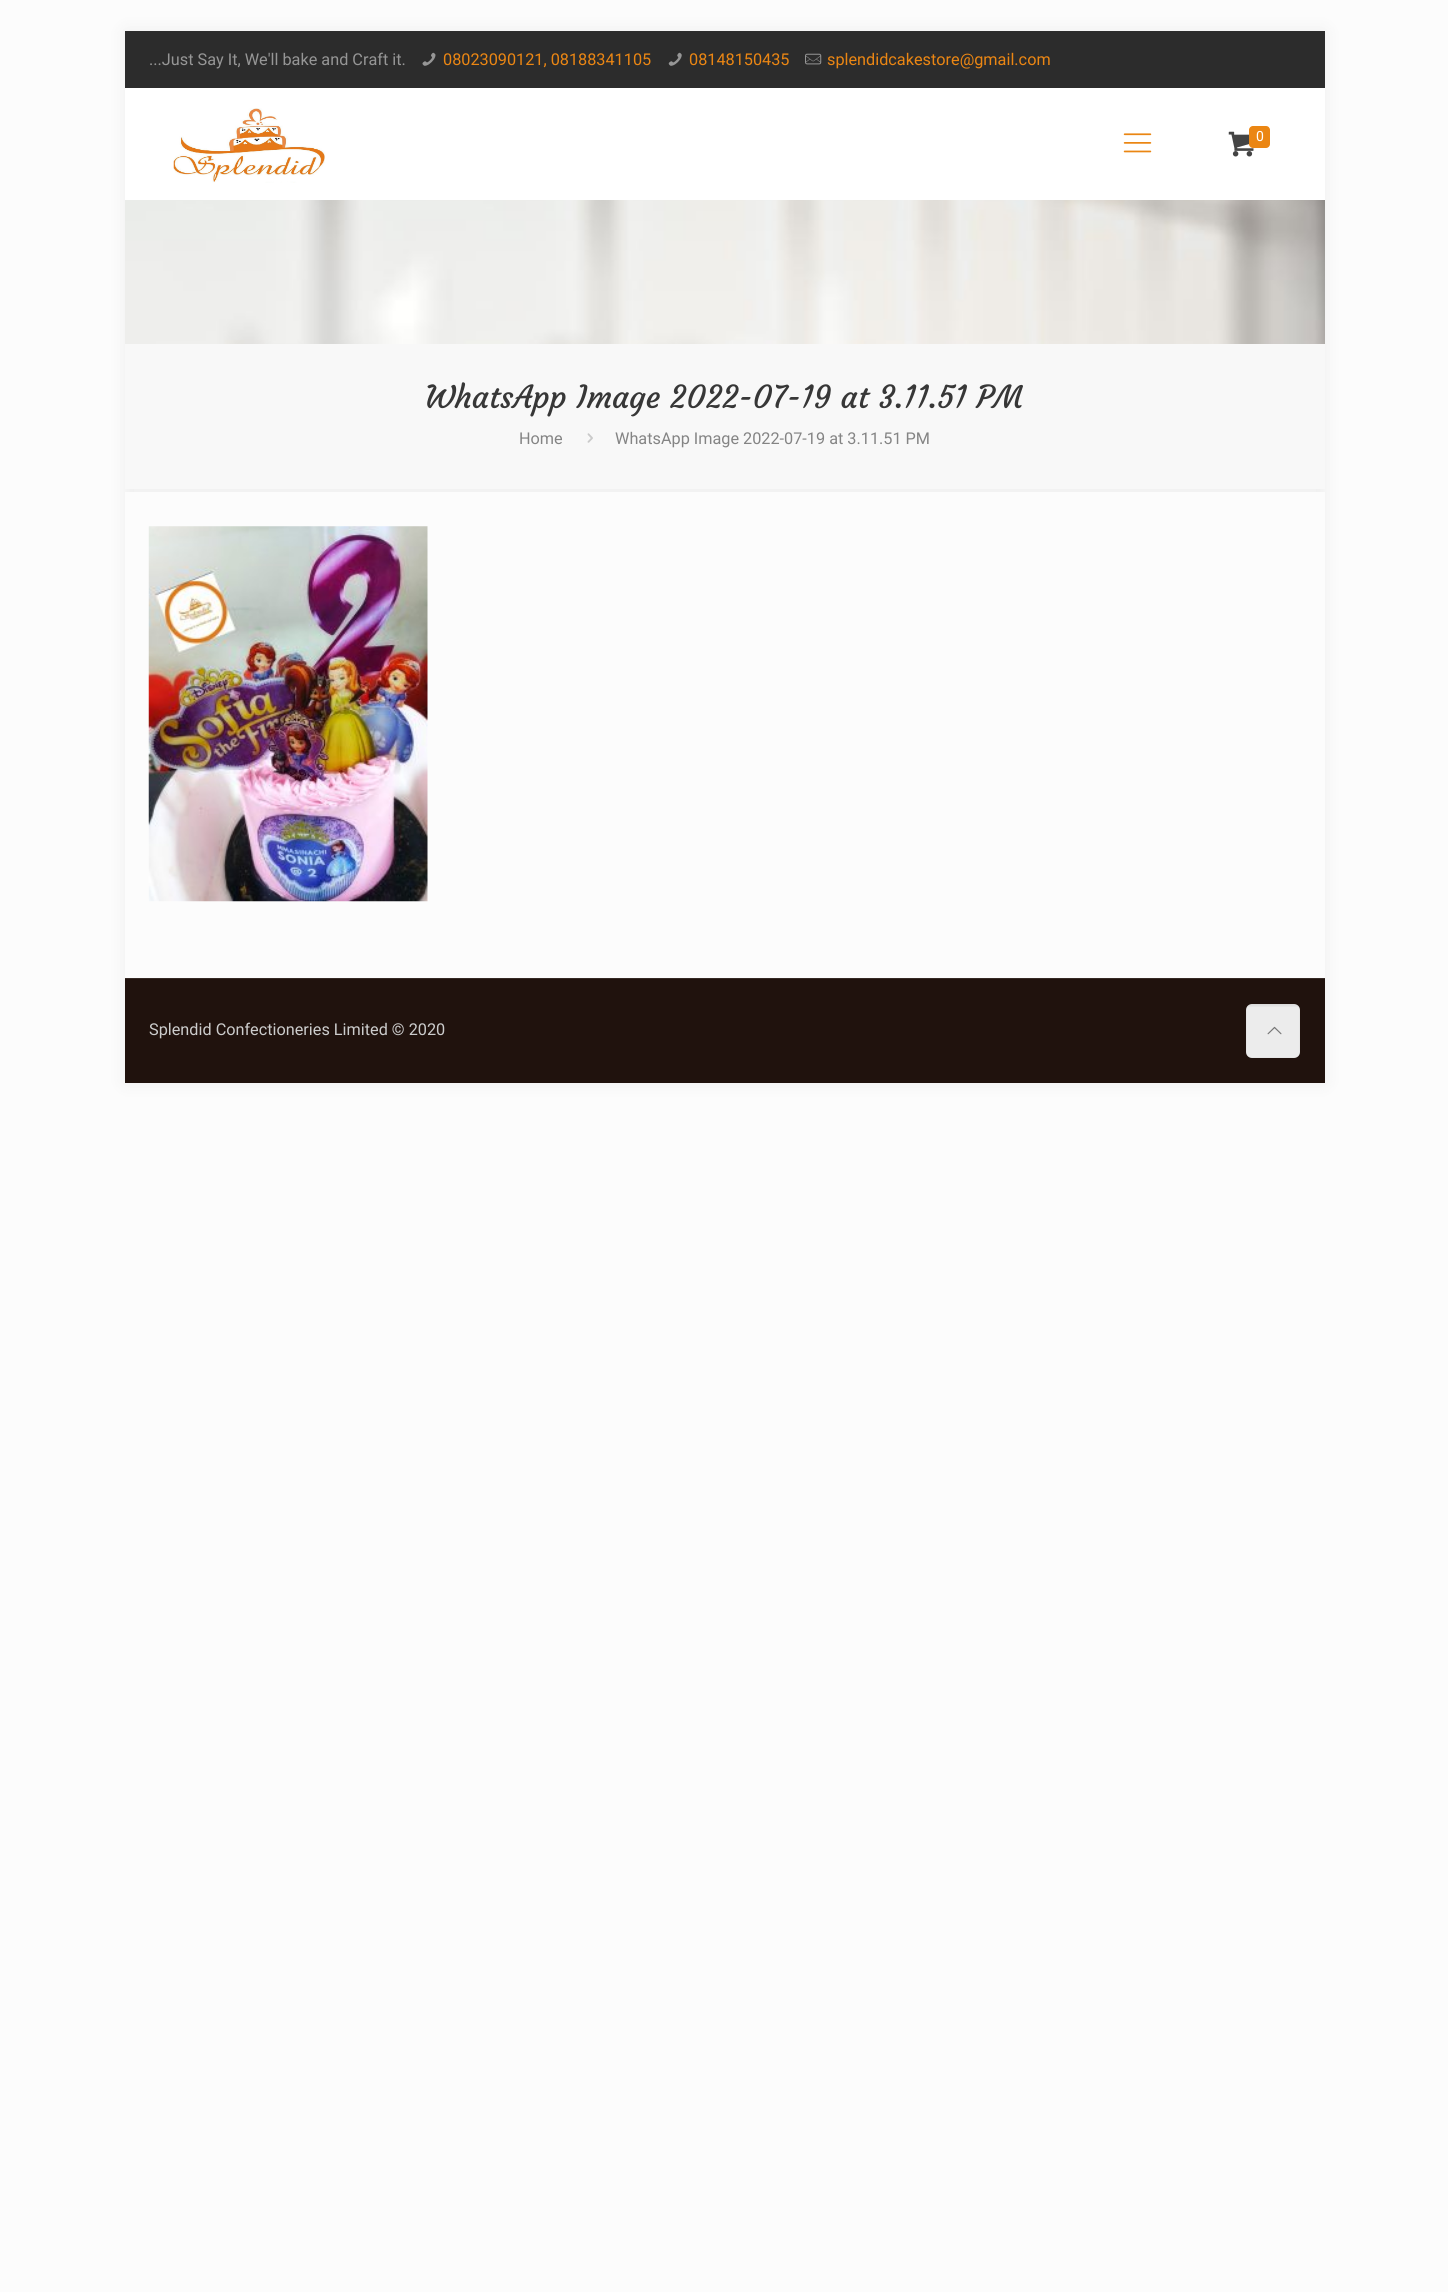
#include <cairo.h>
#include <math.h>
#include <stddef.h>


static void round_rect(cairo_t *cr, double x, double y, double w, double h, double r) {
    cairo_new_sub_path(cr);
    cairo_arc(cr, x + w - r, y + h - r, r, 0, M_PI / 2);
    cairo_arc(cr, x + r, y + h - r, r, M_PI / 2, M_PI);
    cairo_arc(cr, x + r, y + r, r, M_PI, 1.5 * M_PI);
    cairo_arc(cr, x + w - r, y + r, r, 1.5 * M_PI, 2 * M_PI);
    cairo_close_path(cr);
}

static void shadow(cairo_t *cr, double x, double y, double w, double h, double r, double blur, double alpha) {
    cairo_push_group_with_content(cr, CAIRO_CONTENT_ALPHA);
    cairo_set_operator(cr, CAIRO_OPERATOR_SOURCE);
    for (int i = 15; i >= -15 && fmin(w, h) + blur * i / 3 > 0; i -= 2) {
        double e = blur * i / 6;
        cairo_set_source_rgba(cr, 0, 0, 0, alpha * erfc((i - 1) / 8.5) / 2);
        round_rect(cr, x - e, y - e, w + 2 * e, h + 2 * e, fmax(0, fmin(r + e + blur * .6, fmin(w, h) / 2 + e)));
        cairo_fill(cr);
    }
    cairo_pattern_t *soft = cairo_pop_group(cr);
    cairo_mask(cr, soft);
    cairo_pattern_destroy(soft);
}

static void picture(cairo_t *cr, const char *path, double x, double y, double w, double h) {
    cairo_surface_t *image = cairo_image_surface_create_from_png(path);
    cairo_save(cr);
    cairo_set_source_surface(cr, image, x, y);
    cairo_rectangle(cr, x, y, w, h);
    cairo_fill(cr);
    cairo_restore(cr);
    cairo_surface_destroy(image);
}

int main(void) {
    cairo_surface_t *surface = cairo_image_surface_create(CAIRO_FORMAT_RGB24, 1448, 2292);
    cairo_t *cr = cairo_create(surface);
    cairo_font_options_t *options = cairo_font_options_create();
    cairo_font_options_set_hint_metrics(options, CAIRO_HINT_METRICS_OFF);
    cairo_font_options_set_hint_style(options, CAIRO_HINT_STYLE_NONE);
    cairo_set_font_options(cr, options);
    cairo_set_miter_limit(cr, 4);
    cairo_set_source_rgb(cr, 0.988, 0.988, 0.988);
    cairo_paint(cr);
    cairo_set_source_rgb(cr, 0, 0, 0);
    shadow(cr, 125, 31, 1200, 1052, 0, 9.5, 0.06);
    cairo_set_source_rgb(cr, 0.988, 0.988, 0.988);
    cairo_rectangle(cr, 125, 492, 1200, 486);
    cairo_fill(cr);
    picture(cr, "img1.png", 125, 200, 1200, 144);
    cairo_set_source_rgb(cr, 0.173, 0.173, 0.173);
    cairo_rectangle(cr, 125, 31, 1200, 57);
    cairo_fill(cr);
    cairo_select_font_face(cr, "Roboto", CAIRO_FONT_SLANT_NORMAL, CAIRO_FONT_WEIGHT_NORMAL);
    cairo_set_font_size(cr, 16.25);
    cairo_set_source_rgb(cr, 0.588, 0.588, 0.588);
    cairo_move_to(cr, 149, 65);
    cairo_show_text(cr, "...Just Say It, We'll bake and Craft it.");
    picture(cr, "img2.png", 422, 52, 14, 14);
    cairo_set_source_rgb(cr, 0.918, 0.525, 0.075);
    cairo_move_to(cr, 443, 65);
    cairo_show_text(cr, "08023090121, 08188341105");
    picture(cr, "img3.png", 668, 52, 14, 14);
    cairo_move_to(cr, 689, 65);
    cairo_show_text(cr, "08148150435");
    picture(cr, "img4.png", 805, 53, 17, 12);
    cairo_move_to(cr, 827, 65);
    cairo_show_text(cr, "splendidcakestore@gmail.com");
    cairo_set_source_rgb(cr, 1, 1, 1);
    cairo_rectangle(cr, 125, 88, 1200, 112);
    cairo_fill(cr);
    picture(cr, "img5.png", 173, 108, 152, 75);
    picture(cr, "img6.png", 1123, 133, 29, 20);
    picture(cr, "img7.png", 1228, 131, 26, 26);
    cairo_set_source_rgb(cr, 0.918, 0.525, 0.075);
    round_rect(cr, 1249, 126, 21, 22, 4);
    cairo_fill(cr);
    cairo_set_font_size(cr, 14);
    cairo_set_source_rgb(cr, 1, 1, 1);
    cairo_move_to(cr, 1256, 141);
    cairo_show_text(cr, "0");
    cairo_set_source_rgb(cr, 0.969, 0.969, 0.969);
    cairo_rectangle(cr, 125, 344, 1200, 145);
    cairo_fill(cr);
    cairo_select_font_face(cr, "Courgette", CAIRO_FONT_SLANT_NORMAL, CAIRO_FONT_WEIGHT_NORMAL);
    cairo_set_font_size(cr, 31.25);
    cairo_set_source_rgb(cr, 0.216, 0.216, 0.216);
    cairo_move_to(cr, 425, 408);
    cairo_show_text(cr, "WhatsApp Image 2022-07-19 at 3.11.51 PM");
    cairo_select_font_face(cr, "Roboto", CAIRO_FONT_SLANT_NORMAL, CAIRO_FONT_WEIGHT_NORMAL);
    cairo_set_font_size(cr, 16.25);
    cairo_set_source_rgb(cr, 0.518, 0.518, 0.518);
    cairo_move_to(cr, 519, 444);
    cairo_show_text(cr, "Home");
    picture(cr, "img8.png", 587, 433, 6, 10);
    cairo_move_to(cr, 615, 444);
    cairo_show_text(cr, "WhatsApp Image 2022-07-19 at 3.11.51 PM");
    cairo_set_source_rgb(cr, 0.949, 0.949, 0.949);
    cairo_rectangle(cr, 134, 489, 1182, 3);
    cairo_fill(cr);
    picture(cr, "img9.png", 148, 526, 280, 376);
    cairo_set_source_rgb(cr, 0.125, 0.071, 0.051);
    cairo_rectangle(cr, 125, 979, 1200, 104);
    cairo_fill(cr);
    cairo_set_source_rgb(cr, 0.212, 0.165, 0.145);
    cairo_rectangle(cr, 125, 978, 1200, 1);
    cairo_fill(cr);
    cairo_set_source_rgb(cr, 0.8, 0.8, 0.8);
    cairo_move_to(cr, 149, 1035);
    cairo_show_text(cr, "Splendid Confectioneries Limited © 2020");
    cairo_set_source_rgb(cr, 0.969, 0.969, 0.969);
    round_rect(cr, 1246, 1004, 54, 54, 6);
    cairo_fill(cr);
    picture(cr, "img10.png", 1248, 1004, 51, 3);
    cairo_rectangle(cr, 1246.5, 1004.5, 53, 53);
    cairo_set_source_rgba(cr, 0, 0, 0, 0.03);
    cairo_set_line_width(cr, 1);
    cairo_stroke(cr);
    cairo_set_source_rgba(cr, 0, 0, 0, 0.05);
    cairo_rectangle(cr, 1246, 1004, 54, 54);
    cairo_fill(cr);
    picture(cr, "img11.png", 1267, 1026, 15, 9);
    cairo_surface_write_to_png(surface, "page.png");
    cairo_font_options_destroy(options);
    cairo_destroy(cr);
    cairo_surface_destroy(surface);
    return 0;
}
